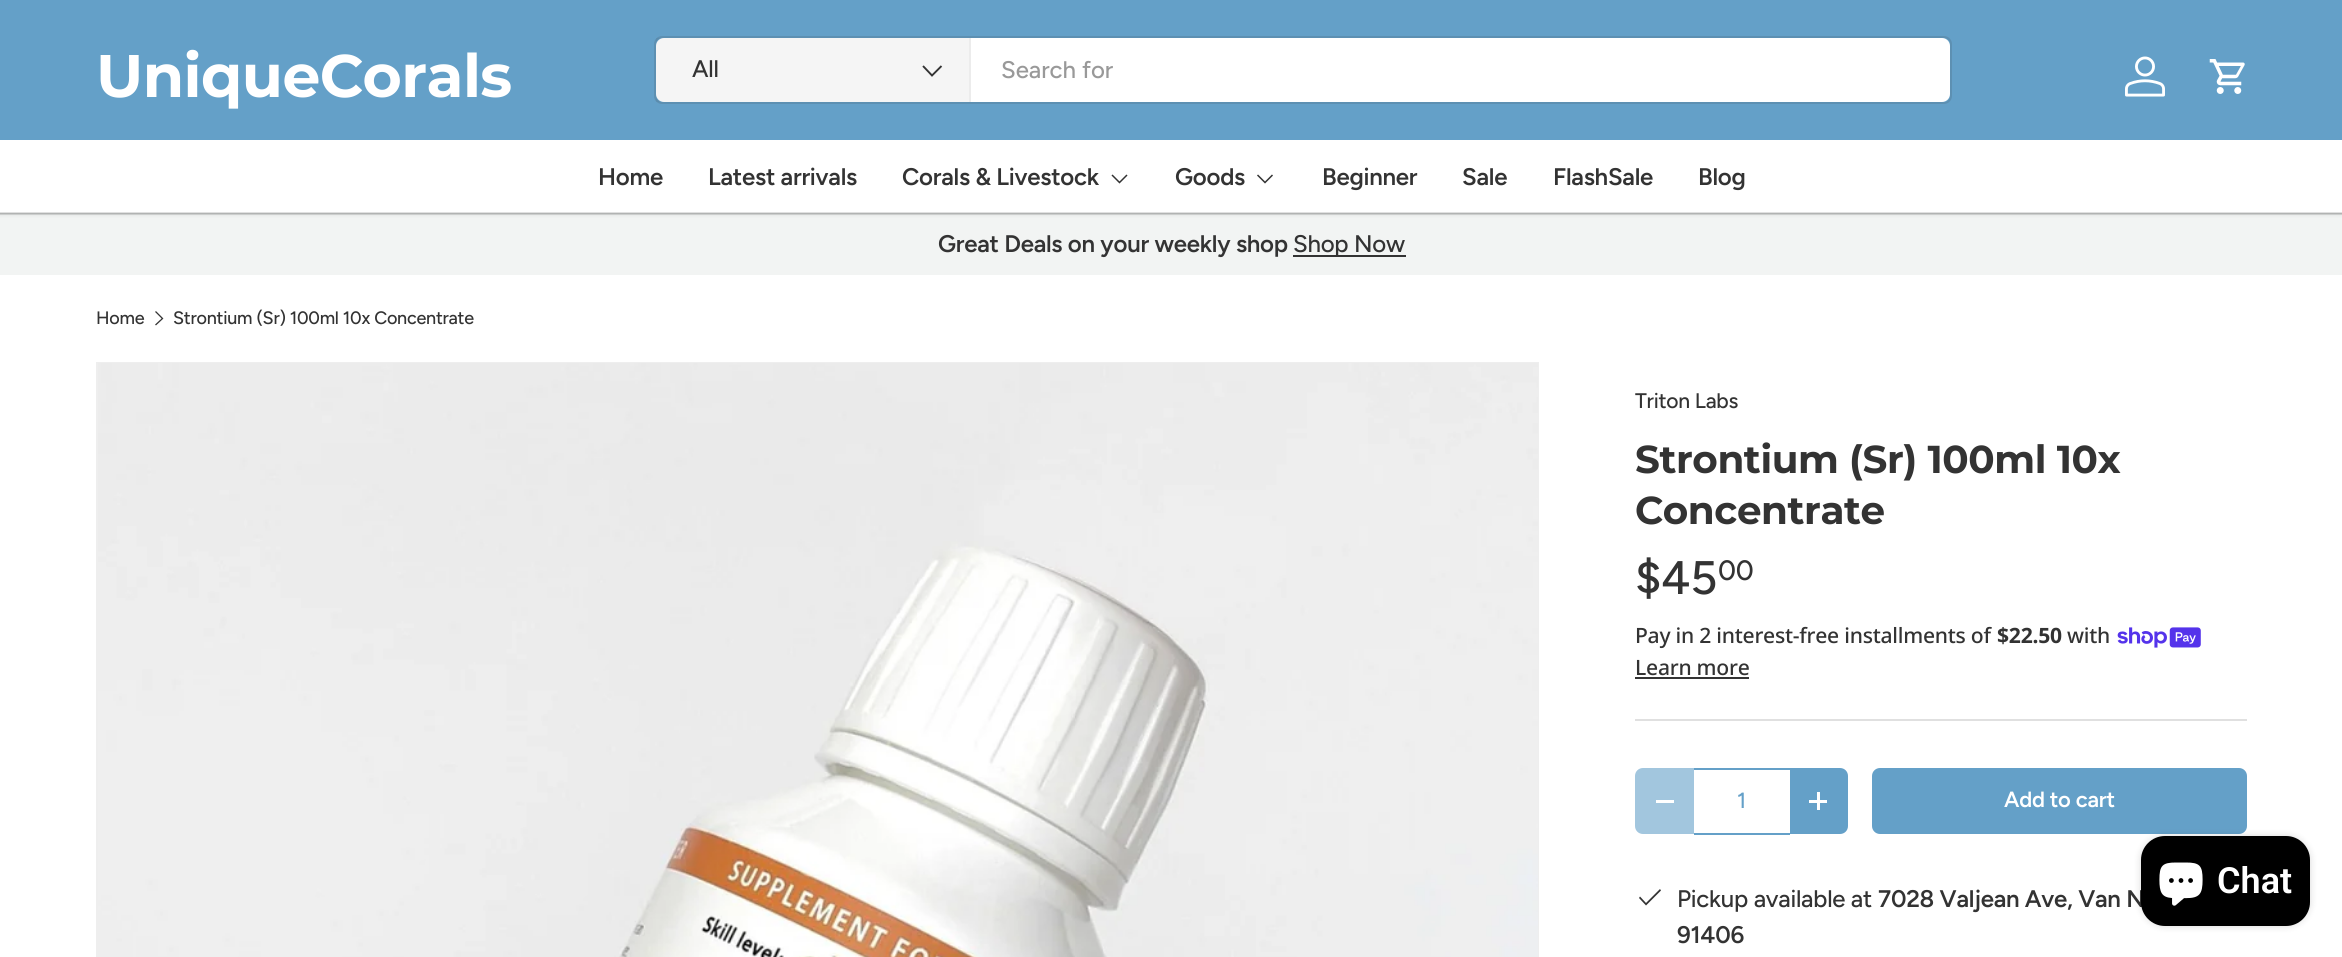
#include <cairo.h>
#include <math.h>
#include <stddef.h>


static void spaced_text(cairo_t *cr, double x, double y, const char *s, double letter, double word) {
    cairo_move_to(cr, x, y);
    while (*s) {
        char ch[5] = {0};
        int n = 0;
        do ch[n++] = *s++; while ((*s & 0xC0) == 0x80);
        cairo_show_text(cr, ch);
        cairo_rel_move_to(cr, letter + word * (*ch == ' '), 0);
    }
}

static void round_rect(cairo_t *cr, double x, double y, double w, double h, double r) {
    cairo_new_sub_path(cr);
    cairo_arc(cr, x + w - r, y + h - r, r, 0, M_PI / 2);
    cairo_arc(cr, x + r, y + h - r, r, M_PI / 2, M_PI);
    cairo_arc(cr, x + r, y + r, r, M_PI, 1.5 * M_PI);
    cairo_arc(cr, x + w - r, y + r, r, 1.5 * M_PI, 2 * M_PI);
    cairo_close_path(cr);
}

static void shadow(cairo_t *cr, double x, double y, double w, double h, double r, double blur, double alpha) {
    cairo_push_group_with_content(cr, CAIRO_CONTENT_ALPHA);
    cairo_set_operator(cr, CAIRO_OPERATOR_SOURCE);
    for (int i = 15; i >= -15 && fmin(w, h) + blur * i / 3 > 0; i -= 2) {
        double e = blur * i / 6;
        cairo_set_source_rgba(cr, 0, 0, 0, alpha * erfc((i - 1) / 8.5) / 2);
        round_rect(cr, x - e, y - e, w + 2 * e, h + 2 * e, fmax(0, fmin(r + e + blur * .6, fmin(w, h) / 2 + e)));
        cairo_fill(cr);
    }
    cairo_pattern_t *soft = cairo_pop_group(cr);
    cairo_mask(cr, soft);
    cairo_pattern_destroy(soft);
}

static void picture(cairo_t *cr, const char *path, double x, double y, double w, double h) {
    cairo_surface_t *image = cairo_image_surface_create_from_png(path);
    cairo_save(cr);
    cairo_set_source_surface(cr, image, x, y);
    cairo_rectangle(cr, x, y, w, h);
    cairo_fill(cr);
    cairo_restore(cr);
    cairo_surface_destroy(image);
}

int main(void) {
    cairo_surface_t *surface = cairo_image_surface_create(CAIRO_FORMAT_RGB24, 2342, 957);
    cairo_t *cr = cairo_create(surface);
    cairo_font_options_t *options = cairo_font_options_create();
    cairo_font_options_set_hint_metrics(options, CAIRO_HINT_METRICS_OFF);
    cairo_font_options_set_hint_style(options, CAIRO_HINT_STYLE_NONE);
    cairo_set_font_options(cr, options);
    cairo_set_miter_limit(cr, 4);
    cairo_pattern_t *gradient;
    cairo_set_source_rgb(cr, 1, 1, 1);
    cairo_paint(cr);
    cairo_set_source_rgb(cr, 0.949, 0.957, 0.953);
    cairo_rectangle(cr, 0, 215, 2342, 60);
    cairo_fill(cr);
    cairo_set_source_rgb(cr, 0.835, 0.843, 0.839);
    cairo_rectangle(cr, 0, 213, 2342, 2);
    cairo_fill(cr);
    cairo_set_source_rgb(cr, 0, 0, 0);
    shadow(cr, -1, -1, 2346, 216, 0, 2, 0.08);
    cairo_set_source_rgb(cr, 0.392, 0.627, 0.784);
    cairo_rectangle(cr, 0, 0, 2342, 140);
    cairo_fill(cr);
    cairo_select_font_face(cr, "Montserrat", CAIRO_FONT_SLANT_NORMAL, CAIRO_FONT_WEIGHT_BOLD);
    cairo_set_font_size(cr, 60);
    cairo_set_source_rgb(cr, 1, 1, 1);
    spaced_text(cr, 96, 97, "UniqueCorals", -0.6, 0);
    round_rect(cr, 655, 37, 1296, 66, 7);
    cairo_set_source_rgb(cr, 0.365, 0.565, 0.698);
    cairo_stroke(cr);
    cairo_set_source_rgb(cr, 1, 1, 1);
    round_rect(cr, 656, 38, 1294, 64, 8);
    cairo_fill(cr);
    cairo_set_source_rgba(cr, 0.2, 0.2, 0.2, 0.05);
    cairo_rectangle(cr, 656, 38, 313, 64);
    cairo_fill(cr);
    cairo_set_source_rgb(cr, 0.922, 0.922, 0.922);
    cairo_rectangle(cr, 969, 38, 2, 64);
    cairo_fill(cr);
    cairo_select_font_face(cr, "Figtree Medium", CAIRO_FONT_SLANT_NORMAL, CAIRO_FONT_WEIGHT_NORMAL);
    cairo_set_font_size(cr, 24);
    cairo_set_source_rgb(cr, 0.2, 0.2, 0.2);
    spaced_text(cr, 692, 77, "All", -0.25, 0);
    cairo_new_path(cr);
    cairo_move_to(cr, 941.5, 66);
    cairo_line_to(cr, 932, 75.5);
    cairo_line_to(cr, 923, 66);
    cairo_set_line_width(cr, 1.9);
    cairo_stroke(cr);
    cairo_set_source_rgb(cr, 0.6, 0.6, 0.6);
    cairo_move_to(cr, 1001, 78);
    cairo_show_text(cr, "Search for");
    picture(cr, "img1.png", 2125, 56, 40, 41);
    picture(cr, "img2.png", 2209, 59, 36, 35);
    cairo_set_source_rgb(cr, 1, 1, 1);
    cairo_rectangle(cr, 0, 140, 2342, 73);
    cairo_fill(cr);
    cairo_select_font_face(cr, "Figtree SemiBold", CAIRO_FONT_SLANT_NORMAL, CAIRO_FONT_WEIGHT_NORMAL);
    cairo_set_source_rgb(cr, 0.2, 0.2, 0.2);
    spaced_text(cr, 598, 185, "Home", -0.25, 0);
    spaced_text(cr, 708, 185, "Latest arrivals", -0.25, 0);
    spaced_text(cr, 902, 185, "Corals & Livestock", -0.25, 0);
    cairo_new_path(cr);
    cairo_move_to(cr, 1127, 175);
    cairo_line_to(cr, 1119.5, 182.5);
    cairo_line_to(cr, 1112, 175);
    cairo_set_line_width(cr, 1.5);
    cairo_stroke(cr);
    spaced_text(cr, 1175, 185, "Goods", -0.25, 0);
    cairo_new_path(cr);
    cairo_move_to(cr, 1272.5, 175);
    cairo_line_to(cr, 1265, 182.5);
    cairo_line_to(cr, 1257.5, 175);
    cairo_stroke(cr);
    spaced_text(cr, 1322, 185, "Beginner", -0.25, 0);
    spaced_text(cr, 1462, 185, "Sale", -0.25, 0);
    spaced_text(cr, 1553, 185, "FlashSale", -0.25, 0);
    spaced_text(cr, 1698, 185, "Blog", -0.25, 0);
    cairo_set_source_rgba(cr, 0.2, 0.2, 0.2, 0.15);
    cairo_rectangle(cr, 0, 212, 2342, 2);
    cairo_fill(cr);
    cairo_set_source_rgb(cr, 0.2, 0.2, 0.2);
    spaced_text(cr, 938, 252, "Great Deals on your weekly shop", -0.25, 0);
    cairo_rectangle(cr, 1293, 255, 113, 2);
    cairo_fill(cr);
    cairo_select_font_face(cr, "Figtree Medium", CAIRO_FONT_SLANT_NORMAL, CAIRO_FONT_WEIGHT_NORMAL);
    spaced_text(cr, 1293, 252, "Shop Now", -0.25, 0);
    cairo_set_font_size(cr, 18);
    spaced_text(cr, 96, 324, "Home", -0.25, 0);
    cairo_new_path(cr);
    cairo_move_to(cr, 155.5, 311.5);
    cairo_line_to(cr, 162.5, 318.5);
    cairo_line_to(cr, 155.5, 325);
    cairo_set_line_width(cr, 1.3);
    cairo_stroke(cr);
    spaced_text(cr, 173, 324, "Strontium (Sr) 100ml 10x Concentrate", -0.25, 0);
    cairo_rectangle(cr, 97, 363, 1441, 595);
    cairo_set_source_rgb(cr, 0.933, 0.933, 0.933);
    cairo_set_line_width(cr, 2);
    cairo_stroke(cr);
    picture(cr, "img3.png", 98, 363, 1440, 594);
    cairo_set_font_size(cr, 21.1);
    cairo_set_source_rgb(cr, 0.2, 0.2, 0.2);
    spaced_text(cr, 1635, 408, "Triton Labs", -0.25, 0);
    cairo_select_font_face(cr, "Montserrat", CAIRO_FONT_SLANT_NORMAL, CAIRO_FONT_WEIGHT_BOLD);
    cairo_set_font_size(cr, 38.9);
    spaced_text(cr, 1635, 473, "Strontium (Sr) 100ml 10x", -0.4, 0);
    spaced_text(cr, 1635, 524, "Concentrate", -0.4, 0);
    cairo_select_font_face(cr, "Figtree Medium", CAIRO_FONT_SLANT_NORMAL, CAIRO_FONT_WEIGHT_NORMAL);
    cairo_set_font_size(cr, 47);
    spaced_text(cr, 1635, 594, "$45", -0.25, 0);
    cairo_set_font_size(cr, 28);
    spaced_text(cr, 1718, 580, "00", -0.25, 0);
    cairo_select_font_face(cr, "Noto Sans Medium", CAIRO_FONT_SLANT_NORMAL, CAIRO_FONT_WEIGHT_NORMAL);
    cairo_set_font_size(cr, 21.1);
    spaced_text(cr, 1635, 643, "Pay in 2 interest-free installments of", -0.25, 0);
    cairo_select_font_face(cr, "Noto Sans", CAIRO_FONT_SLANT_NORMAL, CAIRO_FONT_WEIGHT_BOLD);
    spaced_text(cr, 1997, 643, "$22.50", -0.25, 0);
    cairo_select_font_face(cr, "Noto Sans Medium", CAIRO_FONT_SLANT_NORMAL, CAIRO_FONT_WEIGHT_NORMAL);
    spaced_text(cr, 2067, 643, "with", -0.25, 0);
    picture(cr, "img4.png", 2117, 627, 84, 21);
    spaced_text(cr, 1635, 675, "Learn more", -0.25, 0);
    cairo_rectangle(cr, 1635, 677, 114, 2);
    cairo_fill(cr);
    cairo_set_source_rgb(cr, 0.878, 0.878, 0.878);
    cairo_rectangle(cr, 1635, 719, 612, 2);
    cairo_fill(cr);
    cairo_set_source_rgb(cr, 0.635, 0.776, 0.871);
    cairo_new_path(cr);
    cairo_move_to(cr, 1643, 768);
    cairo_line_to(cr, 1694, 768);
    cairo_line_to(cr, 1694, 834);
    cairo_line_to(cr, 1643, 834);
    cairo_curve_to(cr, 1638.5, 834, 1635, 830.5, 1635, 826);
    cairo_line_to(cr, 1635, 776);
    cairo_curve_to(cr, 1635, 771.5, 1638.5, 768, 1643, 768);
    cairo_close_path(cr);
    cairo_fill(cr);
    cairo_set_source_rgb(cr, 1, 1, 1);
    cairo_rectangle(cr, 1656, 800, 18, 3);
    cairo_fill(cr);
    cairo_set_source_rgb(cr, 0.392, 0.627, 0.784);
    cairo_rectangle(cr, 1694, 833, 96, 2);
    cairo_fill(cr);
    cairo_rectangle(cr, 1694, 768, 96, 2);
    cairo_fill(cr);
    cairo_select_font_face(cr, "Figtree Medium", CAIRO_FONT_SLANT_NORMAL, CAIRO_FONT_WEIGHT_NORMAL);
    cairo_set_font_size(cr, 22);
    cairo_move_to(cr, 1737, 808);
    cairo_show_text(cr, "1");
    cairo_new_path(cr);
    cairo_move_to(cr, 1790, 768);
    cairo_line_to(cr, 1840, 768);
    cairo_curve_to(cr, 1844.5, 768, 1848, 771.5, 1848, 776);
    cairo_line_to(cr, 1848, 826);
    cairo_curve_to(cr, 1848, 830.5, 1844.5, 834, 1840, 834);
    cairo_line_to(cr, 1790, 834);
    cairo_close_path(cr);
    cairo_fill(cr);
    cairo_set_source_rgb(cr, 1, 1, 1);
    cairo_rectangle(cr, 1809, 800, 18, 3);
    cairo_fill(cr);
    cairo_rectangle(cr, 1817, 792, 3, 18);
    cairo_fill(cr);
    gradient = cairo_pattern_create_linear(1147, 667, 2222, 935);
    cairo_pattern_add_color_stop_rgba(gradient, 0.6, 0.525, 0.71, 0.831, 1);
    cairo_pattern_add_color_stop_rgba(gradient, 0.6, 0.392, 0.627, 0.784, 1);
    cairo_pattern_add_color_stop_rgba(gradient, 1, 0.392, 0.627, 0.784, 1);
    cairo_set_source(cr, gradient);
    cairo_pattern_destroy(gradient);
    round_rect(cr, 1872, 768, 375, 66, 8);
    cairo_fill(cr);
    cairo_select_font_face(cr, "Figtree SemiBold", CAIRO_FONT_SLANT_NORMAL, CAIRO_FONT_WEIGHT_NORMAL);
    cairo_set_source_rgb(cr, 1, 1, 1);
    spaced_text(cr, 2004, 807, "Add to cart", -0.25, 0);
    cairo_set_source_rgb(cr, 0.2, 0.2, 0.2);
    cairo_new_path(cr);
    cairo_move_to(cr, 1660, 889);
    cairo_line_to(cr, 1661, 890.5);
    cairo_line_to(cr, 1646, 905.5);
    cairo_line_to(cr, 1639, 898);
    cairo_line_to(cr, 1640, 896.5);
    cairo_line_to(cr, 1646, 903);
    cairo_close_path(cr);
    cairo_fill(cr);
    cairo_select_font_face(cr, "Figtree Medium", CAIRO_FONT_SLANT_NORMAL, CAIRO_FONT_WEIGHT_NORMAL);
    cairo_set_font_size(cr, 24);
    spaced_text(cr, 1677, 907, "Pickup available at", -0.25, 0);
    cairo_select_font_face(cr, "Figtree SemiBold", CAIRO_FONT_SLANT_NORMAL, CAIRO_FONT_WEIGHT_NORMAL);
    spaced_text(cr, 1878, 907, "7028 Valjean Ave, Van N", -0.25, 0);
    spaced_text(cr, 1677, 943, "91406", -0.25, 0);
    cairo_set_source_rgb(cr, 0, 0, 0);
    shadow(cr, 2141, 836, 169, 90, 24, 4, 0.15);
    cairo_set_source_rgb(cr, 0, 0, 0);
    round_rect(cr, 2141, 836, 169, 90, 24);
    cairo_fill(cr);
    picture(cr, "img5.png", 2159, 862, 44, 44);
    cairo_select_font_face(cr, "Roboto SemiBold", CAIRO_FONT_SLANT_NORMAL, CAIRO_FONT_WEIGHT_NORMAL);
    cairo_set_font_size(cr, 36);
    cairo_set_source_rgb(cr, 1, 1, 1);
    cairo_move_to(cr, 2217, 893);
    cairo_show_text(cr, "Chat");
    cairo_surface_write_to_png(surface, "page.png");
    cairo_font_options_destroy(options);
    cairo_destroy(cr);
    cairo_surface_destroy(surface);
    return 0;
}
